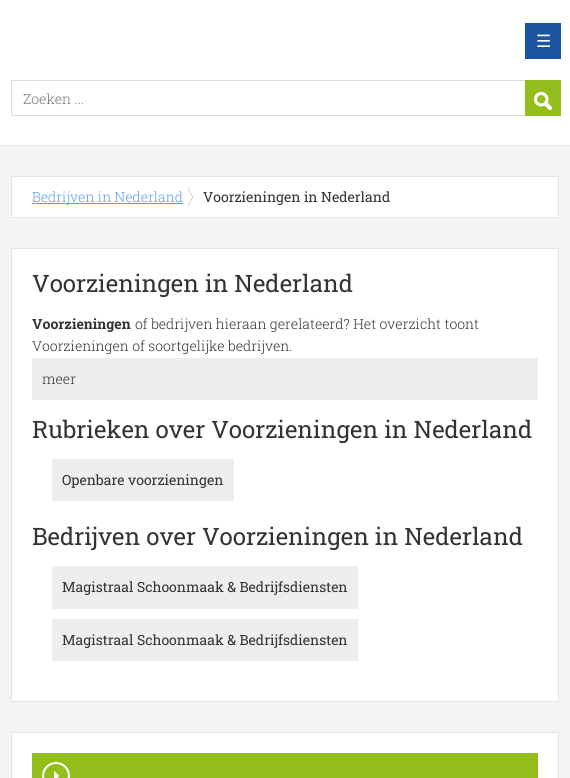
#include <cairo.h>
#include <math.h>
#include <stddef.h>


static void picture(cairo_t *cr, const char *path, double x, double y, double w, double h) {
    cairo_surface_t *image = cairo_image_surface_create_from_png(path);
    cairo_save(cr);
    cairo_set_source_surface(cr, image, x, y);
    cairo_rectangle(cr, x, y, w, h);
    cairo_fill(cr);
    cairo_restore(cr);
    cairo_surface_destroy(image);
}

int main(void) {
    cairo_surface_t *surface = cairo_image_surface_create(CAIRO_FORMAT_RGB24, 570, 778);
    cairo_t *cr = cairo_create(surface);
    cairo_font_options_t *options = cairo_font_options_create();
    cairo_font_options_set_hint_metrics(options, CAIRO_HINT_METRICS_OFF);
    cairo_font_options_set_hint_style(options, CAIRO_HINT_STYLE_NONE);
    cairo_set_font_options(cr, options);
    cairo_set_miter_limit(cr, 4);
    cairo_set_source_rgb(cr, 0.957, 0.957, 0.957);
    cairo_paint(cr);
    cairo_set_source_rgb(cr, 1, 1, 1);
    cairo_rectangle(cr, 0, 0, 570, 145);
    cairo_fill(cr);
    cairo_set_source_rgb(cr, 0.898, 0.898, 0.898);
    cairo_rectangle(cr, 0, 145, 570, 1);
    cairo_fill(cr);
    cairo_set_source_rgb(cr, 0.11, 0.337, 0.631);
    cairo_rectangle(cr, 525, 23, 36, 36);
    cairo_fill(cr);
    cairo_select_font_face(cr, "DejaVu Sans", CAIRO_FONT_SLANT_NORMAL, CAIRO_FONT_WEIGHT_NORMAL);
    cairo_set_font_size(cr, 17);
    cairo_set_source_rgb(cr, 1, 1, 1);
    cairo_move_to(cr, 536, 47);
    cairo_show_text(cr, "☰");
    cairo_rectangle(cr, 11.5, 80.5, 549, 35);
    cairo_set_source_rgb(cr, 0.851, 0.859, 0.863);
    cairo_set_line_width(cr, 1);
    cairo_stroke(cr);
    cairo_select_font_face(cr, "Roboto Slab Light", CAIRO_FONT_SLANT_NORMAL, CAIRO_FONT_WEIGHT_NORMAL);
    cairo_set_font_size(cr, 14);
    cairo_set_source_rgb(cr, 0.459, 0.459, 0.459);
    cairo_move_to(cr, 23, 104);
    cairo_show_text(cr, "Zoeken ...");
    cairo_set_source_rgb(cr, 0.58, 0.745, 0.11);
    cairo_rectangle(cr, 525, 80, 36, 36);
    cairo_fill(cr);
    picture(cr, "img1.png", 534, 92, 18, 18);
    cairo_set_source_rgb(cr, 1, 1, 1);
    cairo_rectangle(cr, 11.5, 176.5, 547, 41);
    cairo_fill_preserve(cr);
    cairo_set_source_rgb(cr, 0.898, 0.898, 0.898);
    cairo_stroke(cr);
    picture(cr, "img2.png", 188, 187, 5, 20);
    cairo_set_source_rgb(cr, 0.337, 0.612, 0.953);
    cairo_rectangle(cr, 32, 203, 151, 1);
    cairo_fill(cr);
    cairo_move_to(cr, 32, 202);
    cairo_show_text(cr, "Bedrijven in Nederland");
    cairo_select_font_face(cr, "Roboto Slab", CAIRO_FONT_SLANT_NORMAL, CAIRO_FONT_WEIGHT_NORMAL);
    cairo_set_source_rgb(cr, 0.2, 0.2, 0.2);
    cairo_move_to(cr, 203, 202);
    cairo_show_text(cr, "Voorzieningen in Nederland");
    cairo_set_source_rgb(cr, 1, 1, 1);
    cairo_rectangle(cr, 11.5, 248.5, 547, 453);
    cairo_fill_preserve(cr);
    cairo_set_source_rgb(cr, 0.898, 0.898, 0.898);
    cairo_stroke(cr);
    cairo_set_font_size(cr, 24);
    cairo_set_source_rgb(cr, 0.2, 0.2, 0.2);
    cairo_move_to(cr, 32, 292);
    cairo_show_text(cr, "Voorzieningen in Nederland");
    cairo_select_font_face(cr, "Roboto Slab", CAIRO_FONT_SLANT_NORMAL, CAIRO_FONT_WEIGHT_BOLD);
    cairo_set_font_size(cr, 14);
    cairo_move_to(cr, 32, 329);
    cairo_show_text(cr, "Voorzieningen");
    cairo_select_font_face(cr, "Roboto Slab Light", CAIRO_FONT_SLANT_NORMAL, CAIRO_FONT_WEIGHT_NORMAL);
    cairo_move_to(cr, 135, 329);
    cairo_show_text(cr, "of bedrijven hieraan gerelateerd? Het overzicht toont");
    cairo_move_to(cr, 32, 351);
    cairo_show_text(cr, "Voorzieningen of soortgelijke bedrijven.");
    cairo_set_source_rgb(cr, 0.933, 0.933, 0.933);
    cairo_rectangle(cr, 32, 358, 506, 42);
    cairo_fill(cr);
    cairo_set_source_rgb(cr, 0.2, 0.2, 0.2);
    cairo_move_to(cr, 42, 384);
    cairo_show_text(cr, "meer");
    cairo_select_font_face(cr, "Roboto Slab", CAIRO_FONT_SLANT_NORMAL, CAIRO_FONT_WEIGHT_NORMAL);
    cairo_set_font_size(cr, 24);
    cairo_move_to(cr, 32, 438);
    cairo_show_text(cr, "Rubrieken over Voorzieningen in Nederland");
    cairo_set_source_rgb(cr, 0.933, 0.933, 0.933);
    cairo_rectangle(cr, 52, 459, 182, 42);
    cairo_fill(cr);
    cairo_set_font_size(cr, 14);
    cairo_set_source_rgb(cr, 0.2, 0.2, 0.2);
    cairo_move_to(cr, 62, 485);
    cairo_show_text(cr, "Openbare voorzieningen");
    cairo_set_font_size(cr, 24);
    cairo_move_to(cr, 32, 545);
    cairo_show_text(cr, "Bedrijven over Voorzieningen in Nederland");
    cairo_set_source_rgb(cr, 0.933, 0.933, 0.933);
    cairo_rectangle(cr, 52, 566, 306, 43);
    cairo_fill(cr);
    cairo_set_font_size(cr, 14);
    cairo_set_source_rgb(cr, 0.2, 0.2, 0.2);
    cairo_move_to(cr, 62, 592);
    cairo_show_text(cr, "Magistraal Schoonmaak & Bedrijfsdiensten");
    cairo_set_source_rgb(cr, 0.933, 0.933, 0.933);
    cairo_rectangle(cr, 52, 619, 306, 42);
    cairo_fill(cr);
    cairo_set_source_rgb(cr, 0.2, 0.2, 0.2);
    cairo_move_to(cr, 62, 645);
    cairo_show_text(cr, "Magistraal Schoonmaak & Bedrijfsdiensten");
    cairo_set_source_rgb(cr, 1, 1, 1);
    cairo_rectangle(cr, 11.5, 732.5, 547, 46);
    cairo_fill_preserve(cr);
    cairo_set_source_rgb(cr, 0.898, 0.898, 0.898);
    cairo_stroke(cr);
    cairo_set_source_rgb(cr, 0.58, 0.745, 0.11);
    cairo_rectangle(cr, 32, 753, 506, 25);
    cairo_fill(cr);
    picture(cr, "img3.png", 42, 762, 28, 16);
    cairo_surface_write_to_png(surface, "page.png");
    cairo_font_options_destroy(options);
    cairo_destroy(cr);
    cairo_surface_destroy(surface);
    return 0;
}
